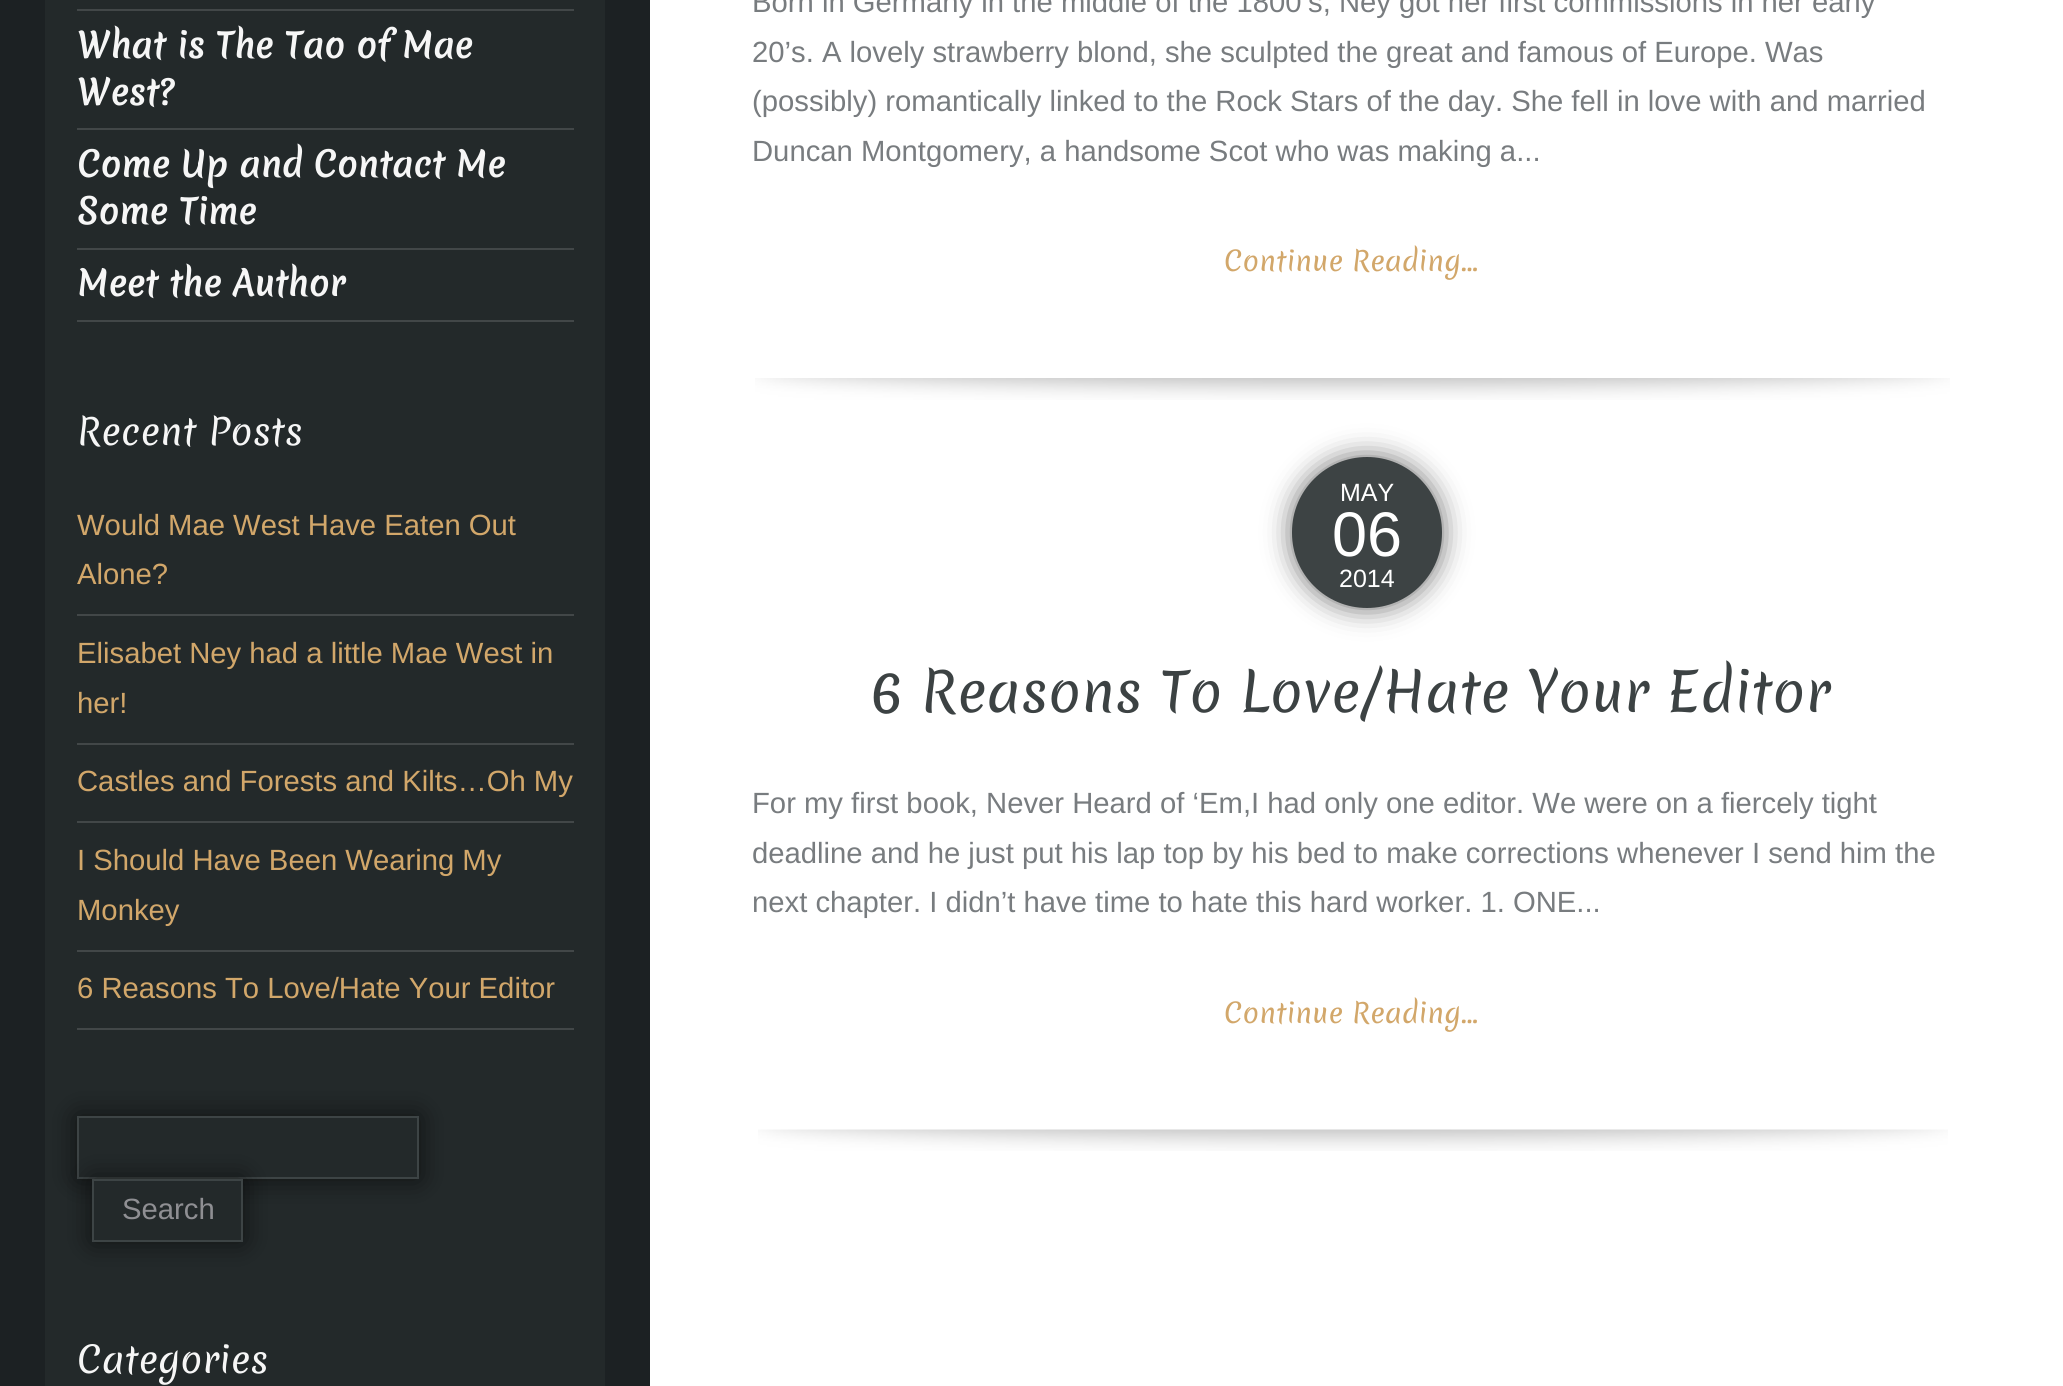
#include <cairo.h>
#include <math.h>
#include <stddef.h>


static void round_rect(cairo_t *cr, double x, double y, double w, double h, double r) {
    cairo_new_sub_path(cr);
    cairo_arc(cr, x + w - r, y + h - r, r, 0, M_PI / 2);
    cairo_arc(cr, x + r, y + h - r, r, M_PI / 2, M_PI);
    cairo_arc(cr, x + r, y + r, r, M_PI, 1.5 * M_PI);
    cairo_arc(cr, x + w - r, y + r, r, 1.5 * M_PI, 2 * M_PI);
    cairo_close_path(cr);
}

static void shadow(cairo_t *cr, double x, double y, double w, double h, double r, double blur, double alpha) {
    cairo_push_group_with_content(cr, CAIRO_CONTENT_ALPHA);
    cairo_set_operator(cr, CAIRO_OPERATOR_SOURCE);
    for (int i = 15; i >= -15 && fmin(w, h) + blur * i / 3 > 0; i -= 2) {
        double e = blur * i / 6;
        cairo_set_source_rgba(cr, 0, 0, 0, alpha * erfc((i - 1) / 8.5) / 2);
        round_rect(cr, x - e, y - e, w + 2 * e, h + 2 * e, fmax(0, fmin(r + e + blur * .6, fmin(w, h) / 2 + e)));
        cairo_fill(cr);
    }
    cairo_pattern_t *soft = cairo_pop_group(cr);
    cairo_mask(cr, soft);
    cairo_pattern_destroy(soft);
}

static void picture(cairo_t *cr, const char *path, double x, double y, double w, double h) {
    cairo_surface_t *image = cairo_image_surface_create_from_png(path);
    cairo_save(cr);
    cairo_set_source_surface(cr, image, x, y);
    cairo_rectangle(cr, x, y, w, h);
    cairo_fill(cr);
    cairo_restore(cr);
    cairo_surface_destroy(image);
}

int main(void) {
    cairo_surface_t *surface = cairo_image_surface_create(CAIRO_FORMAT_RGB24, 2063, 1386);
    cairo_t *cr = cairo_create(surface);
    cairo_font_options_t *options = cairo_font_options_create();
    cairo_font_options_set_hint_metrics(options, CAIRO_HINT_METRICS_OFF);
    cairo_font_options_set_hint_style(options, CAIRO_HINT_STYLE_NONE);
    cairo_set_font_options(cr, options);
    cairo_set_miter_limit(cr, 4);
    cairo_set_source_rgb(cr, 1, 1, 1);
    cairo_paint(cr);
    cairo_set_source_rgb(cr, 0.11, 0.129, 0.137);
    cairo_rectangle(cr, 0, 0, 650, 1386);
    cairo_fill(cr);
    cairo_set_source_rgb(cr, 0.137, 0.161, 0.165);
    cairo_rectangle(cr, 45, 0, 560, 1386);
    cairo_fill(cr);
    cairo_set_source_rgb(cr, 0.259, 0.278, 0.282);
    cairo_rectangle(cr, 77, 9, 497, 2);
    cairo_fill(cr);
    cairo_rectangle(cr, 77, 128, 497, 2);
    cairo_fill(cr);
    cairo_select_font_face(cr, "Merienda", CAIRO_FONT_SLANT_NORMAL, CAIRO_FONT_WEIGHT_BOLD);
    cairo_set_font_size(cr, 33.75);
    cairo_set_source_rgb(cr, 0.961, 0.961, 0.961);
    cairo_move_to(cr, 77, 58);
    cairo_show_text(cr, "What is The Tao of Mae");
    cairo_move_to(cr, 77, 105);
    cairo_show_text(cr, "West?");
    cairo_set_source_rgb(cr, 0.259, 0.278, 0.282);
    cairo_rectangle(cr, 77, 248, 497, 2);
    cairo_fill(cr);
    cairo_set_source_rgb(cr, 0.961, 0.961, 0.961);
    cairo_move_to(cr, 77, 177);
    cairo_show_text(cr, "Come Up and Contact Me");
    cairo_move_to(cr, 77, 224);
    cairo_show_text(cr, "Some Time");
    cairo_set_source_rgb(cr, 0.259, 0.278, 0.282);
    cairo_rectangle(cr, 77, 320, 497, 2);
    cairo_fill(cr);
    cairo_set_source_rgb(cr, 0.961, 0.961, 0.961);
    cairo_move_to(cr, 77, 296);
    cairo_show_text(cr, "Meet the Author");
    cairo_select_font_face(cr, "Merienda", CAIRO_FONT_SLANT_NORMAL, CAIRO_FONT_WEIGHT_NORMAL);
    cairo_set_font_size(cr, 36);
    cairo_move_to(cr, 77, 445);
    cairo_show_text(cr, "Recent Posts");
    cairo_set_source_rgb(cr, 0.259, 0.278, 0.282);
    cairo_rectangle(cr, 77, 614, 497, 2);
    cairo_fill(cr);
    cairo_select_font_face(cr, "Liberation Sans", CAIRO_FONT_SLANT_NORMAL, CAIRO_FONT_WEIGHT_NORMAL);
    cairo_set_font_size(cr, 29.25);
    cairo_set_source_rgb(cr, 0.824, 0.655, 0.416);
    cairo_move_to(cr, 77, 535);
    cairo_show_text(cr, "Would Mae West Have Eaten Out");
    cairo_move_to(cr, 77, 584);
    cairo_show_text(cr, "Alone?");
    cairo_set_source_rgb(cr, 0.259, 0.278, 0.282);
    cairo_rectangle(cr, 77, 743, 497, 2);
    cairo_fill(cr);
    cairo_set_source_rgb(cr, 0.824, 0.655, 0.416);
    cairo_move_to(cr, 77, 663);
    cairo_show_text(cr, "Elisabet Ney had a little Mae West in");
    cairo_move_to(cr, 77, 713);
    cairo_show_text(cr, "her!");
    cairo_set_source_rgb(cr, 0.259, 0.278, 0.282);
    cairo_rectangle(cr, 77, 821, 497, 2);
    cairo_fill(cr);
    cairo_set_source_rgb(cr, 0.824, 0.655, 0.416);
    cairo_move_to(cr, 77, 791);
    cairo_show_text(cr, "Castles and Forests and Kilts…Oh My");
    cairo_set_source_rgb(cr, 0.259, 0.278, 0.282);
    cairo_rectangle(cr, 77, 950, 497, 2);
    cairo_fill(cr);
    cairo_set_source_rgb(cr, 0.824, 0.655, 0.416);
    cairo_move_to(cr, 77, 870);
    cairo_show_text(cr, "I Should Have Been Wearing My");
    cairo_move_to(cr, 77, 920);
    cairo_show_text(cr, "Monkey");
    cairo_set_source_rgb(cr, 0.259, 0.278, 0.282);
    cairo_rectangle(cr, 77, 1028, 497, 2);
    cairo_fill(cr);
    cairo_set_source_rgb(cr, 0.824, 0.655, 0.416);
    cairo_move_to(cr, 77, 998);
    cairo_show_text(cr, "6 Reasons To Love/Hate Your Editor");
    cairo_set_source_rgb(cr, 0, 0, 0);
    shadow(cr, 77, 1116, 342, 63, 0, 13.5, 0.6);
    cairo_set_source_rgb(cr, 0.137, 0.161, 0.165);
    cairo_rectangle(cr, 78, 1117, 340, 61);
    cairo_fill_preserve(cr);
    cairo_set_source_rgb(cr, 0.239, 0.267, 0.271);
    cairo_stroke(cr);
    cairo_set_source_rgb(cr, 0, 0, 0);
    shadow(cr, 92, 1179, 151, 63, 0, 13.5, 0.6);
    cairo_set_source_rgb(cr, 0.137, 0.161, 0.165);
    cairo_rectangle(cr, 93, 1180, 149, 61);
    cairo_fill_preserve(cr);
    cairo_set_source_rgb(cr, 0.239, 0.267, 0.271);
    cairo_stroke(cr);
    cairo_set_source_rgb(cr, 0.561, 0.561, 0.576);
    cairo_move_to(cr, 122, 1219);
    cairo_show_text(cr, "Search");
    cairo_select_font_face(cr, "Merienda", CAIRO_FONT_SLANT_NORMAL, CAIRO_FONT_WEIGHT_NORMAL);
    cairo_set_font_size(cr, 36);
    cairo_set_source_rgb(cr, 0.961, 0.961, 0.961);
    cairo_move_to(cr, 77, 1373);
    cairo_show_text(cr, "Categories");
    cairo_select_font_face(cr, "Liberation Sans", CAIRO_FONT_SLANT_NORMAL, CAIRO_FONT_WEIGHT_NORMAL);
    cairo_set_font_size(cr, 29.25);
    cairo_set_source_rgb(cr, 0.471, 0.486, 0.498);
    cairo_move_to(cr, 752, 12);
    cairo_show_text(cr, "Born in Germany in the middle of the 1800’s, Ney got her first commissions in her early");
    cairo_move_to(cr, 752, 62);
    cairo_show_text(cr, "20’s. A lovely strawberry blond, she sculpted the great and famous of Europe. Was");
    cairo_move_to(cr, 752, 111);
    cairo_show_text(cr, "(possibly) romantically linked to the Rock Stars of the day. She fell in love with and married");
    cairo_move_to(cr, 752, 161);
    cairo_show_text(cr, "Duncan Montgomery, a handsome Scot who was making a...");
    cairo_select_font_face(cr, "Merienda", CAIRO_FONT_SLANT_NORMAL, CAIRO_FONT_WEIGHT_NORMAL);
    cairo_set_font_size(cr, 27);
    cairo_set_source_rgb(cr, 0.824, 0.655, 0.416);
    cairo_move_to(cr, 1224, 271);
    cairo_show_text(cr, "Continue Reading...");
    picture(cr, "img1.png", 755, 378, 1195, 22);
    cairo_set_source_rgb(cr, 0, 0, 0);
    shadow(cr, 1292, 457, 150, 151, 75, 13.5, 0.6);
    cairo_set_source_rgb(cr, 0.239, 0.263, 0.267);
    round_rect(cr, 1292, 457, 150, 151, 75);
    cairo_fill(cr);
    cairo_select_font_face(cr, "Liberation Sans", CAIRO_FONT_SLANT_NORMAL, CAIRO_FONT_WEIGHT_NORMAL);
    cairo_set_font_size(cr, 25);
    cairo_set_source_rgb(cr, 1, 1, 1);
    cairo_move_to(cr, 1340, 501);
    cairo_show_text(cr, "MAY");
    cairo_set_font_size(cr, 63);
    cairo_move_to(cr, 1332, 556);
    cairo_show_text(cr, "06");
    cairo_set_font_size(cr, 25);
    cairo_move_to(cr, 1339, 587);
    cairo_show_text(cr, "2014");
    cairo_select_font_face(cr, "Merienda", CAIRO_FONT_SLANT_NORMAL, CAIRO_FONT_WEIGHT_NORMAL);
    cairo_set_font_size(cr, 54);
    cairo_set_source_rgb(cr, 0.235, 0.259, 0.263);
    cairo_move_to(cr, 871, 712);
    cairo_show_text(cr, "6 Reasons To Love/Hate Your Editor");
    cairo_select_font_face(cr, "Liberation Sans", CAIRO_FONT_SLANT_NORMAL, CAIRO_FONT_WEIGHT_NORMAL);
    cairo_set_font_size(cr, 29.25);
    cairo_set_source_rgb(cr, 0.471, 0.486, 0.498);
    cairo_move_to(cr, 752, 813);
    cairo_show_text(cr, "For my first book, Never Heard of ‘Em,I had only one editor. We were on a fiercely tight");
    cairo_move_to(cr, 752, 863);
    cairo_show_text(cr, "deadline and he just put his lap top by his bed to make corrections whenever I send him the");
    cairo_move_to(cr, 752, 912);
    cairo_show_text(cr, "next chapter. I didn’t have time to hate this hard worker. 1. ONE...");
    cairo_select_font_face(cr, "Merienda", CAIRO_FONT_SLANT_NORMAL, CAIRO_FONT_WEIGHT_NORMAL);
    cairo_set_font_size(cr, 27);
    cairo_set_source_rgb(cr, 0.824, 0.655, 0.416);
    cairo_move_to(cr, 1224, 1023);
    cairo_show_text(cr, "Continue Reading...");
    picture(cr, "img2.png", 758, 1129, 1190, 22);
    cairo_surface_write_to_png(surface, "page.png");
    cairo_font_options_destroy(options);
    cairo_destroy(cr);
    cairo_surface_destroy(surface);
    return 0;
}
